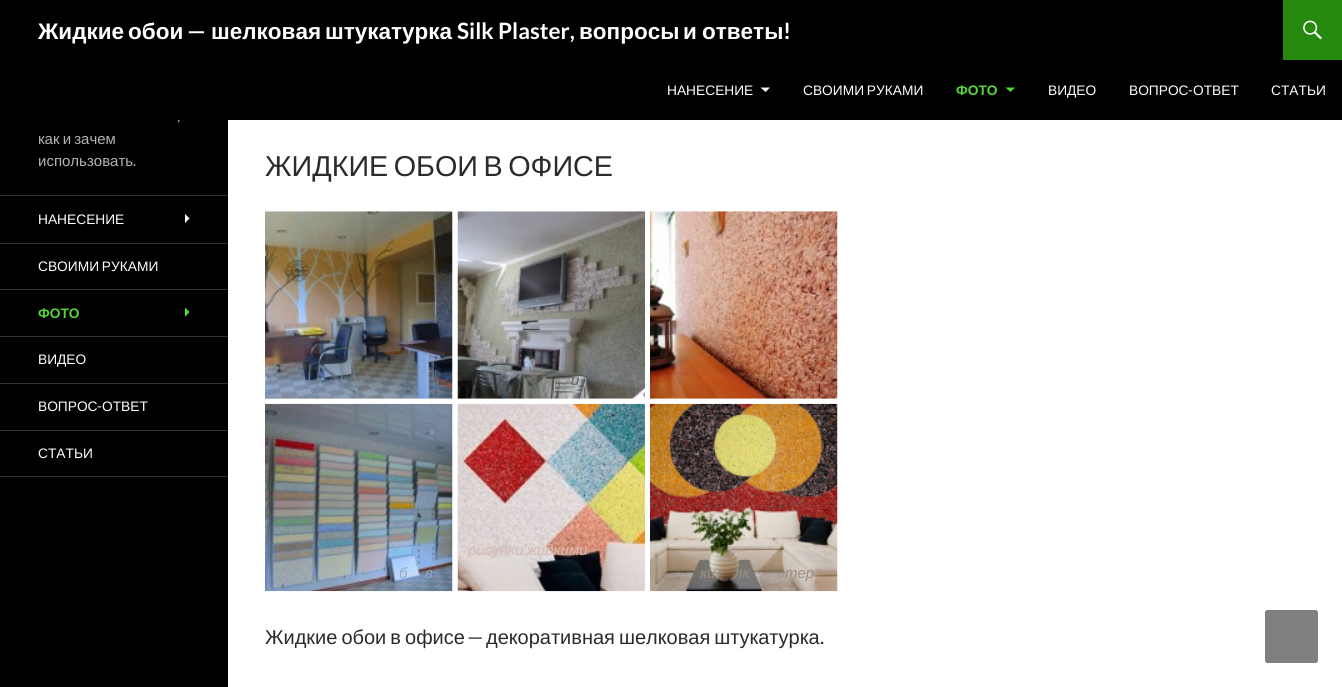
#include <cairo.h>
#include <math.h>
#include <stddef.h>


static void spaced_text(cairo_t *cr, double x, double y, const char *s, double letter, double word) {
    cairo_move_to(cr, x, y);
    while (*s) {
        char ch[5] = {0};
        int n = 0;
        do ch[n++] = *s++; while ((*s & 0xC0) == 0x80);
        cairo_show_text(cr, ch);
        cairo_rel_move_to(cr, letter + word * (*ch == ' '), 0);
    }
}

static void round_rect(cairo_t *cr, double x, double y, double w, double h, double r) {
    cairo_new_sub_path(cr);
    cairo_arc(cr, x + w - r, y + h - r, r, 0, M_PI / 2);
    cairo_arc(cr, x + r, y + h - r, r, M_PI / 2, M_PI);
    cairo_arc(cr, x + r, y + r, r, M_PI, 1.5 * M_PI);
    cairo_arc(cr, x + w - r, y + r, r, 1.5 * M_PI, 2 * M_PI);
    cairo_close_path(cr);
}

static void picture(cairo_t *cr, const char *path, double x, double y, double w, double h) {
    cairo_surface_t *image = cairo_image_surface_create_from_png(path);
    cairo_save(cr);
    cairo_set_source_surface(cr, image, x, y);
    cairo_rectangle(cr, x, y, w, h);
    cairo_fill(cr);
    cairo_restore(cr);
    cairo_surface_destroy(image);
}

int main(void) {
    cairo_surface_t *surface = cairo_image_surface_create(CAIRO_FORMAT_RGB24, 1342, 687);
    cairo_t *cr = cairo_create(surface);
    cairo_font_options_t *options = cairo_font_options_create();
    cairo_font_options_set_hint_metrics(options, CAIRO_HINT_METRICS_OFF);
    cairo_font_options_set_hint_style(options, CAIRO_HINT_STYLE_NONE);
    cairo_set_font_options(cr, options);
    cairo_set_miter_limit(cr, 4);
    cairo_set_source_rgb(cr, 1, 1, 1);
    cairo_paint(cr);
    cairo_set_source_rgb(cr, 0, 0, 0);
    cairo_rectangle(cr, 0, 120, 228, 567);
    cairo_fill(cr);
    cairo_select_font_face(cr, "Lato", CAIRO_FONT_SLANT_NORMAL, CAIRO_FONT_WEIGHT_NORMAL);
    cairo_set_font_size(cr, 15);
    cairo_set_source_rgb(cr, 0.702, 0.702, 0.702);
    cairo_move_to(cr, 177, 121);
    cairo_show_text(cr, ",");
    cairo_set_source_rgb(cr, 0, 0, 0);
    cairo_rectangle(cr, 0, 0, 1342, 120);
    cairo_fill(cr);
    cairo_select_font_face(cr, "Liberation Sans", CAIRO_FONT_SLANT_NORMAL, CAIRO_FONT_WEIGHT_BOLD);
    cairo_set_font_size(cr, 22.5);
    cairo_set_source_rgb(cr, 1, 1, 1);
    cairo_move_to(cr, 38, 39);
    cairo_show_text(cr, "Жидкие");
    cairo_move_to(cr, 128, 39);
    cairo_show_text(cr, "обои");
    cairo_select_font_face(cr, "Lato", CAIRO_FONT_SLANT_NORMAL, CAIRO_FONT_WEIGHT_BOLD);
    cairo_move_to(cr, 187, 39);
    cairo_show_text(cr, "—");
    cairo_select_font_face(cr, "Liberation Sans", CAIRO_FONT_SLANT_NORMAL, CAIRO_FONT_WEIGHT_BOLD);
    cairo_move_to(cr, 211, 39);
    cairo_show_text(cr, "шелковая");
    cairo_move_to(cr, 325, 39);
    cairo_show_text(cr, "штукатурка");
    cairo_select_font_face(cr, "Lato", CAIRO_FONT_SLANT_NORMAL, CAIRO_FONT_WEIGHT_BOLD);
    cairo_move_to(cr, 457, 39);
    cairo_show_text(cr, "Silk Plaster,");
    cairo_select_font_face(cr, "Liberation Sans", CAIRO_FONT_SLANT_NORMAL, CAIRO_FONT_WEIGHT_BOLD);
    cairo_move_to(cr, 579, 39);
    cairo_show_text(cr, "вопросы");
    cairo_move_to(cr, 683, 39);
    cairo_show_text(cr, "и");
    cairo_move_to(cr, 702, 39);
    cairo_show_text(cr, "ответы");
    cairo_select_font_face(cr, "Lato", CAIRO_FONT_SLANT_NORMAL, CAIRO_FONT_WEIGHT_BOLD);
    cairo_move_to(cr, 783, 39);
    cairo_show_text(cr, "!");
    cairo_set_source_rgb(cr, 0.141, 0.537, 0.051);
    cairo_rectangle(cr, 1283, 0, 59, 60);
    cairo_fill(cr);
    picture(cr, "img1.png", 1303, 20, 19, 20);
    cairo_select_font_face(cr, "Liberation Sans", CAIRO_FONT_SLANT_NORMAL, CAIRO_FONT_WEIGHT_NORMAL);
    cairo_set_font_size(cr, 13.75);
    cairo_set_source_rgb(cr, 1, 1, 1);
    cairo_move_to(cr, 667, 95);
    cairo_show_text(cr, "НАНЕСЕНИЕ");
    cairo_new_path(cr);
    cairo_move_to(cr, 760.5, 87.5);
    cairo_line_to(cr, 765.5, 92);
    cairo_line_to(cr, 770, 87.5);
    cairo_close_path(cr);
    cairo_fill(cr);
    spaced_text(cr, 803, 95, "СВОИМИ РУКАМИ", 0, -1);
    cairo_select_font_face(cr, "Liberation Sans", CAIRO_FONT_SLANT_NORMAL, CAIRO_FONT_WEIGHT_BOLD);
    cairo_set_source_rgb(cr, 0.333, 0.843, 0.216);
    cairo_move_to(cr, 956, 95);
    cairo_show_text(cr, "ФОТО");
    cairo_new_path(cr);
    cairo_move_to(cr, 1005.5, 87.5);
    cairo_line_to(cr, 1010.5, 92);
    cairo_line_to(cr, 1015, 87.5);
    cairo_close_path(cr);
    cairo_fill(cr);
    cairo_select_font_face(cr, "Liberation Sans", CAIRO_FONT_SLANT_NORMAL, CAIRO_FONT_WEIGHT_NORMAL);
    cairo_set_source_rgb(cr, 1, 1, 1);
    cairo_move_to(cr, 1048, 95);
    cairo_show_text(cr, "ВИДЕО");
    cairo_move_to(cr, 1129, 95);
    cairo_show_text(cr, "ВОПРОС");
    cairo_select_font_face(cr, "Lato", CAIRO_FONT_SLANT_NORMAL, CAIRO_FONT_WEIGHT_NORMAL);
    cairo_move_to(cr, 1188, 95);
    cairo_show_text(cr, "-");
    cairo_select_font_face(cr, "Liberation Sans", CAIRO_FONT_SLANT_NORMAL, CAIRO_FONT_WEIGHT_NORMAL);
    cairo_move_to(cr, 1193, 95);
    cairo_show_text(cr, "ОТВЕТ");
    cairo_move_to(cr, 1271, 95);
    cairo_show_text(cr, "СТАТЬИ");
    cairo_set_font_size(cr, 15);
    cairo_set_source_rgb(cr, 0.702, 0.702, 0.702);
    spaced_text(cr, 38, 144, "как и зачем", 0, -1);
    cairo_move_to(cr, 38, 166);
    cairo_show_text(cr, "использовать");
    cairo_select_font_face(cr, "Lato", CAIRO_FONT_SLANT_NORMAL, CAIRO_FONT_WEIGHT_NORMAL);
    cairo_move_to(cr, 133, 166);
    cairo_show_text(cr, ".");
    cairo_set_source_rgb(cr, 0.2, 0.2, 0.2);
    cairo_rectangle(cr, 0, 476, 228, 1);
    cairo_fill(cr);
    cairo_rectangle(cr, 0, 195, 228, 1);
    cairo_fill(cr);
    cairo_select_font_face(cr, "Liberation Sans", CAIRO_FONT_SLANT_NORMAL, CAIRO_FONT_WEIGHT_NORMAL);
    cairo_set_font_size(cr, 13.75);
    cairo_set_source_rgb(cr, 1, 1, 1);
    cairo_move_to(cr, 38, 224);
    cairo_show_text(cr, "НАНЕСЕНИЕ");
    cairo_new_path(cr);
    cairo_move_to(cr, 185, 223);
    cairo_line_to(cr, 189.5, 218.5);
    cairo_line_to(cr, 185, 214);
    cairo_close_path(cr);
    cairo_fill(cr);
    cairo_set_source_rgb(cr, 0.2, 0.2, 0.2);
    cairo_rectangle(cr, 0, 243, 228, 1);
    cairo_fill(cr);
    cairo_set_source_rgb(cr, 1, 1, 1);
    spaced_text(cr, 38, 271, "СВОИМИ РУКАМИ", 0, -1);
    cairo_set_source_rgb(cr, 0.2, 0.2, 0.2);
    cairo_rectangle(cr, 0, 289, 228, 1);
    cairo_fill(cr);
    cairo_select_font_face(cr, "Liberation Sans", CAIRO_FONT_SLANT_NORMAL, CAIRO_FONT_WEIGHT_BOLD);
    cairo_set_source_rgb(cr, 0.333, 0.843, 0.216);
    cairo_move_to(cr, 38, 318);
    cairo_show_text(cr, "ФОТО");
    cairo_new_path(cr);
    cairo_move_to(cr, 185, 317);
    cairo_line_to(cr, 189.5, 312);
    cairo_line_to(cr, 185, 307.5);
    cairo_close_path(cr);
    cairo_fill(cr);
    cairo_set_source_rgb(cr, 0.2, 0.2, 0.2);
    cairo_rectangle(cr, 0, 336, 228, 1);
    cairo_fill(cr);
    cairo_select_font_face(cr, "Liberation Sans", CAIRO_FONT_SLANT_NORMAL, CAIRO_FONT_WEIGHT_NORMAL);
    cairo_set_source_rgb(cr, 1, 1, 1);
    cairo_move_to(cr, 38, 364);
    cairo_show_text(cr, "ВИДЕО");
    cairo_set_source_rgb(cr, 0.2, 0.2, 0.2);
    cairo_rectangle(cr, 0, 383, 228, 1);
    cairo_fill(cr);
    cairo_set_source_rgb(cr, 1, 1, 1);
    cairo_move_to(cr, 38, 411);
    cairo_show_text(cr, "ВОПРОС");
    cairo_select_font_face(cr, "Lato", CAIRO_FONT_SLANT_NORMAL, CAIRO_FONT_WEIGHT_NORMAL);
    cairo_move_to(cr, 97, 411);
    cairo_show_text(cr, "-");
    cairo_select_font_face(cr, "Liberation Sans", CAIRO_FONT_SLANT_NORMAL, CAIRO_FONT_WEIGHT_NORMAL);
    cairo_move_to(cr, 102, 411);
    cairo_show_text(cr, "ОТВЕТ");
    cairo_set_source_rgb(cr, 0.2, 0.2, 0.2);
    cairo_rectangle(cr, 0, 430, 228, 1);
    cairo_fill(cr);
    cairo_set_source_rgb(cr, 1, 1, 1);
    cairo_move_to(cr, 38, 458);
    cairo_show_text(cr, "СТАТЬИ");
    cairo_set_font_size(cr, 28.75);
    cairo_set_source_rgb(cr, 0.169, 0.169, 0.169);
    spaced_text(cr, 265, 176, "ЖИДКИЕ ОБОИ В ОФИСЕ", 0, -2.5);
    picture(cr, "img2.png", 265, 211, 188, 188);
    picture(cr, "img3.png", 457, 211, 188, 188);
    cairo_select_font_face(cr, "Liberation Sans", CAIRO_FONT_SLANT_ITALIC, CAIRO_FONT_WEIGHT_NORMAL);
    cairo_set_font_size(cr, 15);
    cairo_set_source_rgb(cr, 0.388, 0.4, 0.4);
    spaced_text(cr, 571, 385, "и", 0, -1);
    picture(cr, "img4.png", 650, 211, 188, 188);
    picture(cr, "img5.png", 457, 403, 188, 189);
    cairo_set_source_rgb(cr, 0.831, 0.733, 0.702);
    spaced_text(cr, 468, 555, "рисунки жидкими", 0, -1);
    picture(cr, "img6.png", 265, 403, 188, 189);
    cairo_set_source_rgb(cr, 0.596, 0.663, 0.741);
    spaced_text(cr, 399, 578, "б", 0, -1);
    spaced_text(cr, 425, 578, "в", 0, -1);
    picture(cr, "img7.png", 650, 403, 188, 189);
    cairo_set_source_rgb(cr, 0.6, 0.557, 0.51);
    spaced_text(cr, 700, 578, "ки", 0, -1);
    spaced_text(cr, 734, 578, "лк", 0, -1);
    spaced_text(cr, 785, 578, "тер", 0, -1);
    cairo_select_font_face(cr, "Liberation Sans", CAIRO_FONT_SLANT_NORMAL, CAIRO_FONT_WEIGHT_NORMAL);
    cairo_set_font_size(cr, 20);
    cairo_set_source_rgb(cr, 0.169, 0.169, 0.169);
    spaced_text(cr, 265, 644, "Жидкие обои в офисе", 0, -1.5);
    cairo_select_font_face(cr, "Lato", CAIRO_FONT_SLANT_NORMAL, CAIRO_FONT_WEIGHT_NORMAL);
    cairo_move_to(cr, 467, 644);
    cairo_show_text(cr, "—");
    cairo_select_font_face(cr, "Liberation Sans", CAIRO_FONT_SLANT_NORMAL, CAIRO_FONT_WEIGHT_NORMAL);
    spaced_text(cr, 486, 644, "декоративная шелковая штукатурка", 0, -1.5);
    cairo_select_font_face(cr, "Lato", CAIRO_FONT_SLANT_NORMAL, CAIRO_FONT_WEIGHT_NORMAL);
    cairo_move_to(cr, 820, 644);
    cairo_show_text(cr, ".");
    cairo_set_source_rgb(cr, 0.502, 0.502, 0.502);
    round_rect(cr, 1265, 610, 53, 53, 2.5);
    cairo_fill(cr);
    cairo_surface_write_to_png(surface, "page.png");
    cairo_font_options_destroy(options);
    cairo_destroy(cr);
    cairo_surface_destroy(surface);
    return 0;
}
